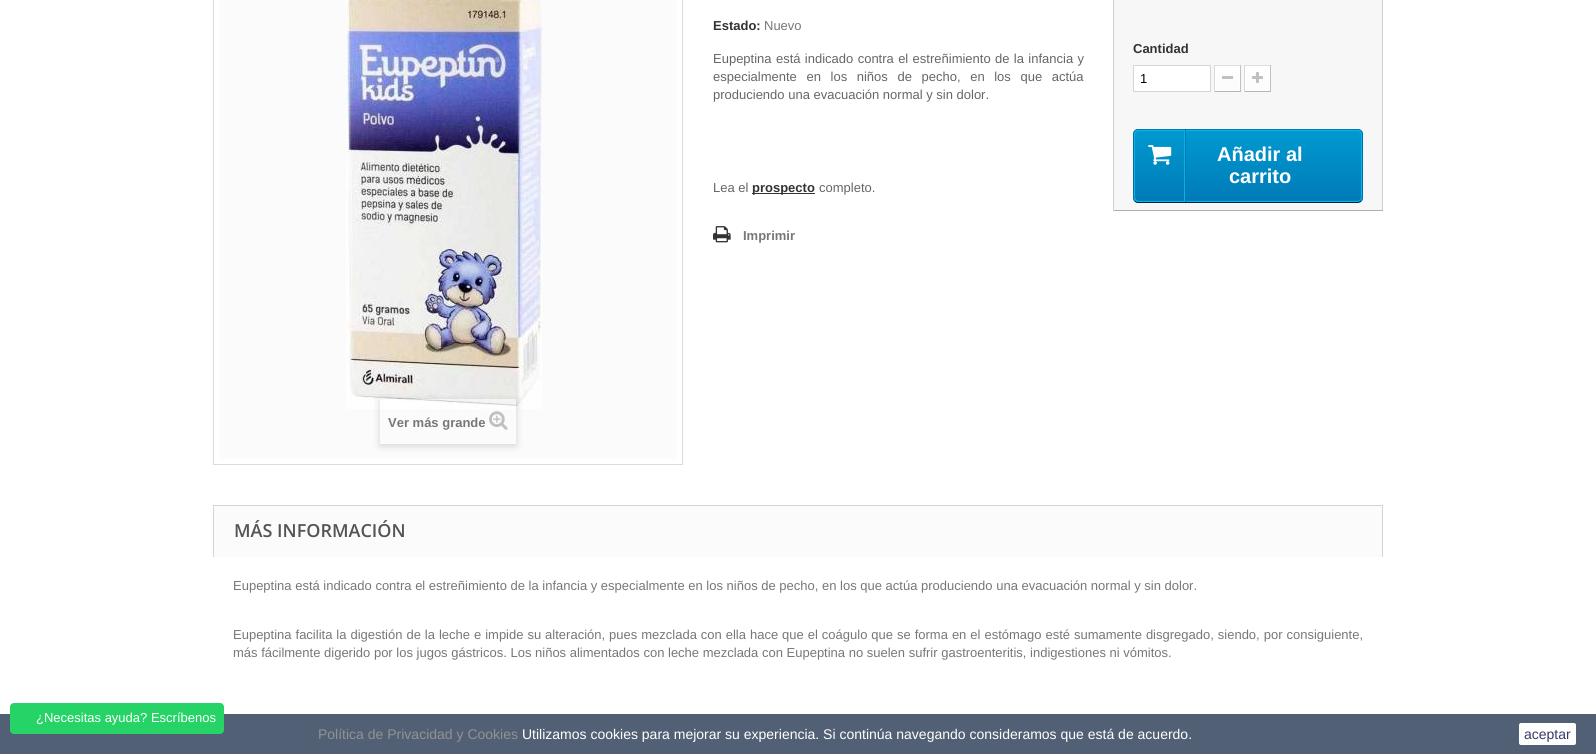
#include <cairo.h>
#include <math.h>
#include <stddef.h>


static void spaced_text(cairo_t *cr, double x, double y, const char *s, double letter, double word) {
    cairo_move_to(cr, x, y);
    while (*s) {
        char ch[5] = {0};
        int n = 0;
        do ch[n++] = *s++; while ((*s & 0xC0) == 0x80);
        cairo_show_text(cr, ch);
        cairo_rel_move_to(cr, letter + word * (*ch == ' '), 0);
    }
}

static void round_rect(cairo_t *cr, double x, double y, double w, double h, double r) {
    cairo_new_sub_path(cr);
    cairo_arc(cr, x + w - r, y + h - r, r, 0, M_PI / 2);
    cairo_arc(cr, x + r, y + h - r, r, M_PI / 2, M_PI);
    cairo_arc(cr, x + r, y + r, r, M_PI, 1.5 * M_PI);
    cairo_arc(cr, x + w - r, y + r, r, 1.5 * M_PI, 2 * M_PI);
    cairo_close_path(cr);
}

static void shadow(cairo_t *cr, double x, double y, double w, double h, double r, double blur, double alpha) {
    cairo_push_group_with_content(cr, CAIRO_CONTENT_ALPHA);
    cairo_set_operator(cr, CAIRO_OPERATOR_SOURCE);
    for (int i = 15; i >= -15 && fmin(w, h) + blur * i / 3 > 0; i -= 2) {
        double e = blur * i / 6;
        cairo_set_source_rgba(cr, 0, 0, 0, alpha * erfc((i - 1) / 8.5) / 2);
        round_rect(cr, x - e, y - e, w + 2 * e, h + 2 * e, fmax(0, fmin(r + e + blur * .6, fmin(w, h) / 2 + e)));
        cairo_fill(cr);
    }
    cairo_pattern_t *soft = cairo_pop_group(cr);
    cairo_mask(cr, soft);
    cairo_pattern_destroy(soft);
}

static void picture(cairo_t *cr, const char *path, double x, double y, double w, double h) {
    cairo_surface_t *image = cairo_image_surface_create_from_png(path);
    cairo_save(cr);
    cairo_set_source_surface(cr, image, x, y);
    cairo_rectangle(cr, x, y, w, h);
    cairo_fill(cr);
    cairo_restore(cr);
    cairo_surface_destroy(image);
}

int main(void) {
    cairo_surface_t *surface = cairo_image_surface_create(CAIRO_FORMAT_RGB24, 1596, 754);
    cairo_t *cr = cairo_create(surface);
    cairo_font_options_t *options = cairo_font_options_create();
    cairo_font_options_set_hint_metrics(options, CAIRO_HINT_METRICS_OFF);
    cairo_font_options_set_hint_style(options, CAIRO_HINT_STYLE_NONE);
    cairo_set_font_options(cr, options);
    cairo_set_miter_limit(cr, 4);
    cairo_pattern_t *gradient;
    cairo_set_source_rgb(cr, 1, 1, 1);
    cairo_paint(cr);
    cairo_select_font_face(cr, "Liberation Sans", CAIRO_FONT_SLANT_NORMAL, CAIRO_FONT_WEIGHT_BOLD);
    cairo_set_font_size(cr, 13);
    cairo_set_source_rgb(cr, 0.2, 0.2, 0.2);
    cairo_move_to(cr, 713, 30);
    cairo_show_text(cr, "Estado:");
    cairo_select_font_face(cr, "Liberation Sans", CAIRO_FONT_SLANT_NORMAL, CAIRO_FONT_WEIGHT_NORMAL);
    cairo_set_source_rgb(cr, 0.467, 0.467, 0.467);
    cairo_move_to(cr, 764, 30);
    cairo_show_text(cr, "Nuevo");
    cairo_set_source_rgb(cr, 0.4, 0.4, 0.4);
    spaced_text(cr, 713, 63, "Eupeptina está indicado contra el estreñimiento de la infancia y", 0, 0.75);
    spaced_text(cr, 713, 81, "especialmente en los niños de pecho, en los que actúa", 0, 6);
    cairo_move_to(cr, 713, 99);
    cairo_show_text(cr, "produciendo una evacuación normal y sin dolor.");
    cairo_move_to(cr, 713, 192);
    cairo_show_text(cr, "Lea el");
    cairo_set_source_rgb(cr, 0.2, 0.2, 0.2);
    cairo_rectangle(cr, 752, 193, 63, 1);
    cairo_fill(cr);
    cairo_select_font_face(cr, "Liberation Sans", CAIRO_FONT_SLANT_NORMAL, CAIRO_FONT_WEIGHT_BOLD);
    cairo_move_to(cr, 752, 192);
    cairo_show_text(cr, "prospecto");
    cairo_select_font_face(cr, "Liberation Sans", CAIRO_FONT_SLANT_NORMAL, CAIRO_FONT_WEIGHT_NORMAL);
    cairo_set_source_rgb(cr, 0.4, 0.4, 0.4);
    cairo_move_to(cr, 819, 192);
    cairo_show_text(cr, "completo.");
    picture(cr, "img1.png", 713, 226, 18, 17);
    cairo_select_font_face(cr, "Liberation Sans", CAIRO_FONT_SLANT_NORMAL, CAIRO_FONT_WEIGHT_BOLD);
    cairo_set_source_rgb(cr, 0.467, 0.467, 0.467);
    cairo_move_to(cr, 743, 240);
    cairo_show_text(cr, "Imprimir");
    cairo_set_source_rgb(cr, 0.965, 0.965, 0.965);
    cairo_rectangle(cr, 1114, 0, 268, 210);
    cairo_fill(cr);
    cairo_set_source_rgb(cr, 0.824, 0.816, 0.816);
    cairo_rectangle(cr, 1382, 0, 1, 211);
    cairo_fill(cr);
    cairo_set_source_rgb(cr, 0.69, 0.686, 0.686);
    cairo_rectangle(cr, 1113, 210, 270, 1);
    cairo_fill(cr);
    cairo_set_source_rgb(cr, 0.824, 0.816, 0.816);
    cairo_rectangle(cr, 1113, 0, 1, 211);
    cairo_fill(cr);
    cairo_set_source_rgb(cr, 0.2, 0.2, 0.2);
    cairo_move_to(cr, 1133, 53);
    cairo_show_text(cr, "Cantidad");
    cairo_set_source_rgb(cr, 1, 1, 1);
    cairo_rectangle(cr, 1133.5, 65.5, 77, 26);
    cairo_fill_preserve(cr);
    cairo_set_source_rgb(cr, 0.839, 0.831, 0.831);
    cairo_set_line_width(cr, 1);
    cairo_stroke(cr);
    cairo_select_font_face(cr, "Liberation Sans", CAIRO_FONT_SLANT_NORMAL, CAIRO_FONT_WEIGHT_NORMAL);
    cairo_set_source_rgb(cr, 0, 0, 0);
    cairo_move_to(cr, 1140, 83);
    cairo_show_text(cr, "1");
    cairo_set_source_rgb(cr, 0.871, 0.863, 0.863);
    cairo_rectangle(cr, 1214, 65, 27, 1);
    cairo_fill(cr);
    cairo_set_source_rgb(cr, 0.757, 0.749, 0.749);
    cairo_rectangle(cr, 1240, 65, 1, 27);
    cairo_fill(cr);
    cairo_set_source_rgb(cr, 0.71, 0.706, 0.706);
    cairo_rectangle(cr, 1214, 91, 27, 1);
    cairo_fill(cr);
    cairo_set_source_rgb(cr, 0.855, 0.847, 0.847);
    cairo_rectangle(cr, 1214, 65, 1, 27);
    cairo_fill(cr);
    gradient = cairo_pattern_create_linear(1228, 67, 1228, 90);
    cairo_pattern_add_color_stop_rgba(gradient, 0, 1, 1, 1, 1);
    cairo_pattern_add_color_stop_rgba(gradient, 1, 0.984, 0.984, 0.984, 1);
    cairo_set_source(cr, gradient);
    cairo_pattern_destroy(gradient);
    cairo_rectangle(cr, 1216, 67, 23, 23);
    cairo_fill(cr);
    cairo_rectangle(cr, 1215.5, 66.5, 24, 24);
    cairo_set_source_rgb(cr, 1, 1, 1);
    cairo_stroke(cr);
    cairo_set_source_rgb(cr, 0.753, 0.753, 0.753);
    cairo_rectangle(cr, 1222, 76, 11, 3);
    cairo_fill(cr);
    cairo_set_source_rgb(cr, 0.871, 0.863, 0.863);
    cairo_rectangle(cr, 1244, 65, 27, 1);
    cairo_fill(cr);
    cairo_set_source_rgb(cr, 0.757, 0.749, 0.749);
    cairo_rectangle(cr, 1270, 65, 1, 27);
    cairo_fill(cr);
    cairo_set_source_rgb(cr, 0.71, 0.706, 0.706);
    cairo_rectangle(cr, 1244, 91, 27, 1);
    cairo_fill(cr);
    cairo_set_source_rgb(cr, 0.855, 0.847, 0.847);
    cairo_rectangle(cr, 1244, 65, 1, 27);
    cairo_fill(cr);
    gradient = cairo_pattern_create_linear(1258, 67, 1258, 90);
    cairo_pattern_add_color_stop_rgba(gradient, 0, 1, 1, 1, 1);
    cairo_pattern_add_color_stop_rgba(gradient, 1, 0.984, 0.984, 0.984, 1);
    cairo_set_source(cr, gradient);
    cairo_pattern_destroy(gradient);
    cairo_rectangle(cr, 1246, 67, 23, 23);
    cairo_fill(cr);
    cairo_rectangle(cr, 1245.5, 66.5, 24, 24);
    cairo_set_source_rgb(cr, 1, 1, 1);
    cairo_stroke(cr);
    picture(cr, "img2.png", 1252, 72, 11, 11);
    cairo_save(cr);
    round_rect(cr, 1133, 129, 230, 74, 5);
    cairo_clip(cr);
    gradient = cairo_pattern_create_linear(1248, 58, 1248, 130);
    cairo_pattern_add_color_stop_rgba(gradient, 0, 0, 0.604, 0.816, 1);
    cairo_pattern_add_color_stop_rgba(gradient, 1, 0, 0.478, 0.718, 1);
    cairo_set_source(cr, gradient);
    cairo_pattern_destroy(gradient);
    cairo_rectangle(cr, 1133, 129, 230, 1);
    cairo_fill(cr);
    gradient = cairo_pattern_create_linear(1248, 130, 1248, 202);
    cairo_pattern_add_color_stop_rgba(gradient, 0, 0, 0.604, 0.816, 1);
    cairo_pattern_add_color_stop_rgba(gradient, 1, 0, 0.478, 0.718, 1);
    cairo_set_source(cr, gradient);
    cairo_pattern_destroy(gradient);
    cairo_rectangle(cr, 1133, 130, 230, 72);
    cairo_fill(cr);
    gradient = cairo_pattern_create_linear(1248, 202, 1248, 274);
    cairo_pattern_add_color_stop_rgba(gradient, 0, 0, 0.604, 0.816, 1);
    cairo_pattern_add_color_stop_rgba(gradient, 1, 0, 0.478, 0.718, 1);
    cairo_set_source(cr, gradient);
    cairo_pattern_destroy(gradient);
    cairo_rectangle(cr, 1133, 202, 230, 1);
    cairo_fill(cr);
    cairo_restore(cr);
    cairo_new_path(cr);
    cairo_move_to(cr, 1135, 131);
    cairo_line_to(cr, 1137.5, 129.5);
    cairo_line_to(cr, 1321.5, 129.5);
    cairo_line_to(cr, 1358, 129.5);
    cairo_line_to(cr, 1361, 131);
    cairo_set_source_rgb(cr, 0, 0.475, 0.714);
    cairo_stroke(cr);
    cairo_new_path(cr);
    cairo_move_to(cr, 1361, 131);
    cairo_line_to(cr, 1362.5, 133.5);
    cairo_line_to(cr, 1362.5, 198.5);
    cairo_line_to(cr, 1361, 201);
    cairo_set_source_rgb(cr, 0, 0.435, 0.659);
    cairo_stroke(cr);
    cairo_new_path(cr);
    cairo_move_to(cr, 1361, 201);
    cairo_line_to(cr, 1358, 202.5);
    cairo_line_to(cr, 1137.5, 202.5);
    cairo_line_to(cr, 1135, 201);
    cairo_set_source_rgb(cr, 0.004, 0.153, 0.251);
    cairo_stroke(cr);
    cairo_new_path(cr);
    cairo_move_to(cr, 1135, 201);
    cairo_line_to(cr, 1133.5, 198.5);
    cairo_line_to(cr, 1133.5, 133.5);
    cairo_line_to(cr, 1135, 131);
    cairo_set_source_rgb(cr, 0, 0.435, 0.659);
    cairo_stroke(cr);
    round_rect(cr, 1134.5, 130.5, 227, 71, 4.5);
    cairo_set_source_rgb(cr, 0.024, 0.698, 0.902);
    cairo_stroke(cr);
    cairo_new_path(cr);
    cairo_move_to(cr, 1139, 130.5);
    cairo_line_to(cr, 1184.5, 130.5);
    cairo_line_to(cr, 1184.5, 201.5);
    cairo_line_to(cr, 1139, 201.5);
    cairo_curve_to(cr, 1136.5, 201.5, 1134.5, 199.5, 1134.5, 197);
    cairo_line_to(cr, 1134.5, 135);
    cairo_curve_to(cr, 1134.5, 132.5, 1136.5, 130.5, 1139, 130.5);
    cairo_close_path(cr);
    cairo_stroke(cr);
    picture(cr, "img3.png", 1148, 145, 24, 20);
    cairo_set_source_rgb(cr, 0, 0.475, 0.714);
    cairo_rectangle(cr, 1185, 130, 1, 72);
    cairo_fill(cr);
    cairo_select_font_face(cr, "Liberation Sans", CAIRO_FONT_SLANT_NORMAL, CAIRO_FONT_WEIGHT_BOLD);
    cairo_set_font_size(cr, 20);
    cairo_set_source_rgb(cr, 1, 1, 1);
    cairo_move_to(cr, 1217, 161);
    cairo_show_text(cr, "Añadir al");
    cairo_move_to(cr, 1229, 183);
    cairo_show_text(cr, "carrito");
    cairo_rectangle(cr, 213.5, -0.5, 469, 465);
    cairo_set_source_rgb(cr, 0.859, 0.859, 0.859);
    cairo_stroke(cr);
    cairo_set_source_rgb(cr, 0.984, 0.984, 0.984);
    cairo_rectangle(cr, 219, 0, 458, 459);
    cairo_fill(cr);
    picture(cr, "img4.png", 346, 0, 196, 409);
    cairo_save(cr);
    cairo_set_fill_rule(cr, CAIRO_FILL_RULE_EVEN_ODD);
    cairo_new_path(cr);
    cairo_move_to(cr, 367, 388);
    cairo_line_to(cr, 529, 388);
    cairo_line_to(cr, 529, 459);
    cairo_line_to(cr, 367, 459);
    cairo_close_path(cr);
    cairo_move_to(cr, 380, 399);
    cairo_line_to(cr, 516, 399);
    cairo_line_to(cr, 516, 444);
    cairo_line_to(cr, 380, 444);
    cairo_close_path(cr);
    cairo_clip(cr);
    cairo_set_source_rgb(cr, 0, 0, 0);
    shadow(cr, 380, 401, 136, 45, 0, 4, 0.16);
    cairo_restore(cr);
    cairo_set_source_rgba(cr, 1, 1, 1, 0.5);
    cairo_rectangle(cr, 384, 399, 132, 10);
    cairo_fill(cr);
    cairo_set_font_size(cr, 13);
    cairo_set_source_rgb(cr, 0.467, 0.467, 0.467);
    cairo_move_to(cr, 388, 427);
    cairo_show_text(cr, "Ver más grande");
    picture(cr, "img5.png", 489, 411, 19, 19);
    cairo_set_source_rgb(cr, 0.984, 0.984, 0.984);
    cairo_rectangle(cr, 214, 506, 1168, 51);
    cairo_fill(cr);
    cairo_set_source_rgb(cr, 0.839, 0.831, 0.831);
    cairo_rectangle(cr, 213, 505, 1170, 1);
    cairo_fill(cr);
    cairo_rectangle(cr, 1382, 505, 1, 52);
    cairo_fill(cr);
    cairo_rectangle(cr, 213, 505, 1, 52);
    cairo_fill(cr);
    cairo_select_font_face(cr, "Open Sans SemiBold", CAIRO_FONT_SLANT_NORMAL, CAIRO_FONT_WEIGHT_NORMAL);
    cairo_set_font_size(cr, 18);
    cairo_set_source_rgb(cr, 0.333, 0.329, 0.329);
    cairo_move_to(cr, 234, 537);
    cairo_show_text(cr, "MÁS INFORMACIÓN");
    cairo_select_font_face(cr, "Liberation Sans", CAIRO_FONT_SLANT_NORMAL, CAIRO_FONT_WEIGHT_NORMAL);
    cairo_set_font_size(cr, 13);
    cairo_set_source_rgb(cr, 0.467, 0.467, 0.467);
    cairo_move_to(cr, 233, 590);
    cairo_show_text(cr, "Eupeptina está indicado contra el estreñimiento de la infancia y especialmente en los niños de pecho, en los que actúa produciendo una evacuación normal y sin dolor.");
    spaced_text(cr, 233, 639, "Eupeptina facilita la digestión de la leche e impide su alteración, pues mezclada con ella hace que el coágulo que se forma en el estómago esté sumamente disgregado, siendo, por consiguiente,", 0, 0.35);
    cairo_move_to(cr, 233, 657);
    cairo_show_text(cr, "más fácilmente digerido por los jugos gástricos. Los niños alimentados con leche mezclada con Eupeptina no suelen sufrir gastroenteritis, indigestiones ni vómitos.");
    cairo_set_source_rgba(cr, 0.149, 0.224, 0.322, 0.8);
    cairo_rectangle(cr, 0, 714, 1596, 40);
    cairo_fill(cr);
    cairo_set_source_rgb(cr, 0.145, 0.827, 0.4);
    round_rect(cr, 10, 703, 214, 31, 4);
    cairo_fill(cr);
    cairo_set_source_rgb(cr, 1, 1, 1);
    cairo_move_to(cr, 36, 722);
    cairo_show_text(cr, "¿Necesitas ayuda? Escríbenos");
    cairo_set_font_size(cr, 14);
    cairo_set_source_rgb(cr, 0.573, 0.573, 0.573);
    cairo_move_to(cr, 318, 739);
    cairo_show_text(cr, "Política de Privacidad y Cookies");
    cairo_set_source_rgb(cr, 1, 1, 1);
    cairo_move_to(cr, 522, 739);
    cairo_show_text(cr, "Utilizamos cookies para mejorar su experiencia. Si continúa navegando consideramos que está de acuerdo.");
    round_rect(cr, 1519, 723, 57, 22, 2);
    cairo_fill(cr);
    cairo_set_source_rgb(cr, 0.224, 0.227, 0.392);
    cairo_move_to(cr, 1524, 739);
    cairo_show_text(cr, "aceptar");
    cairo_surface_write_to_png(surface, "page.png");
    cairo_font_options_destroy(options);
    cairo_destroy(cr);
    cairo_surface_destroy(surface);
    return 0;
}
